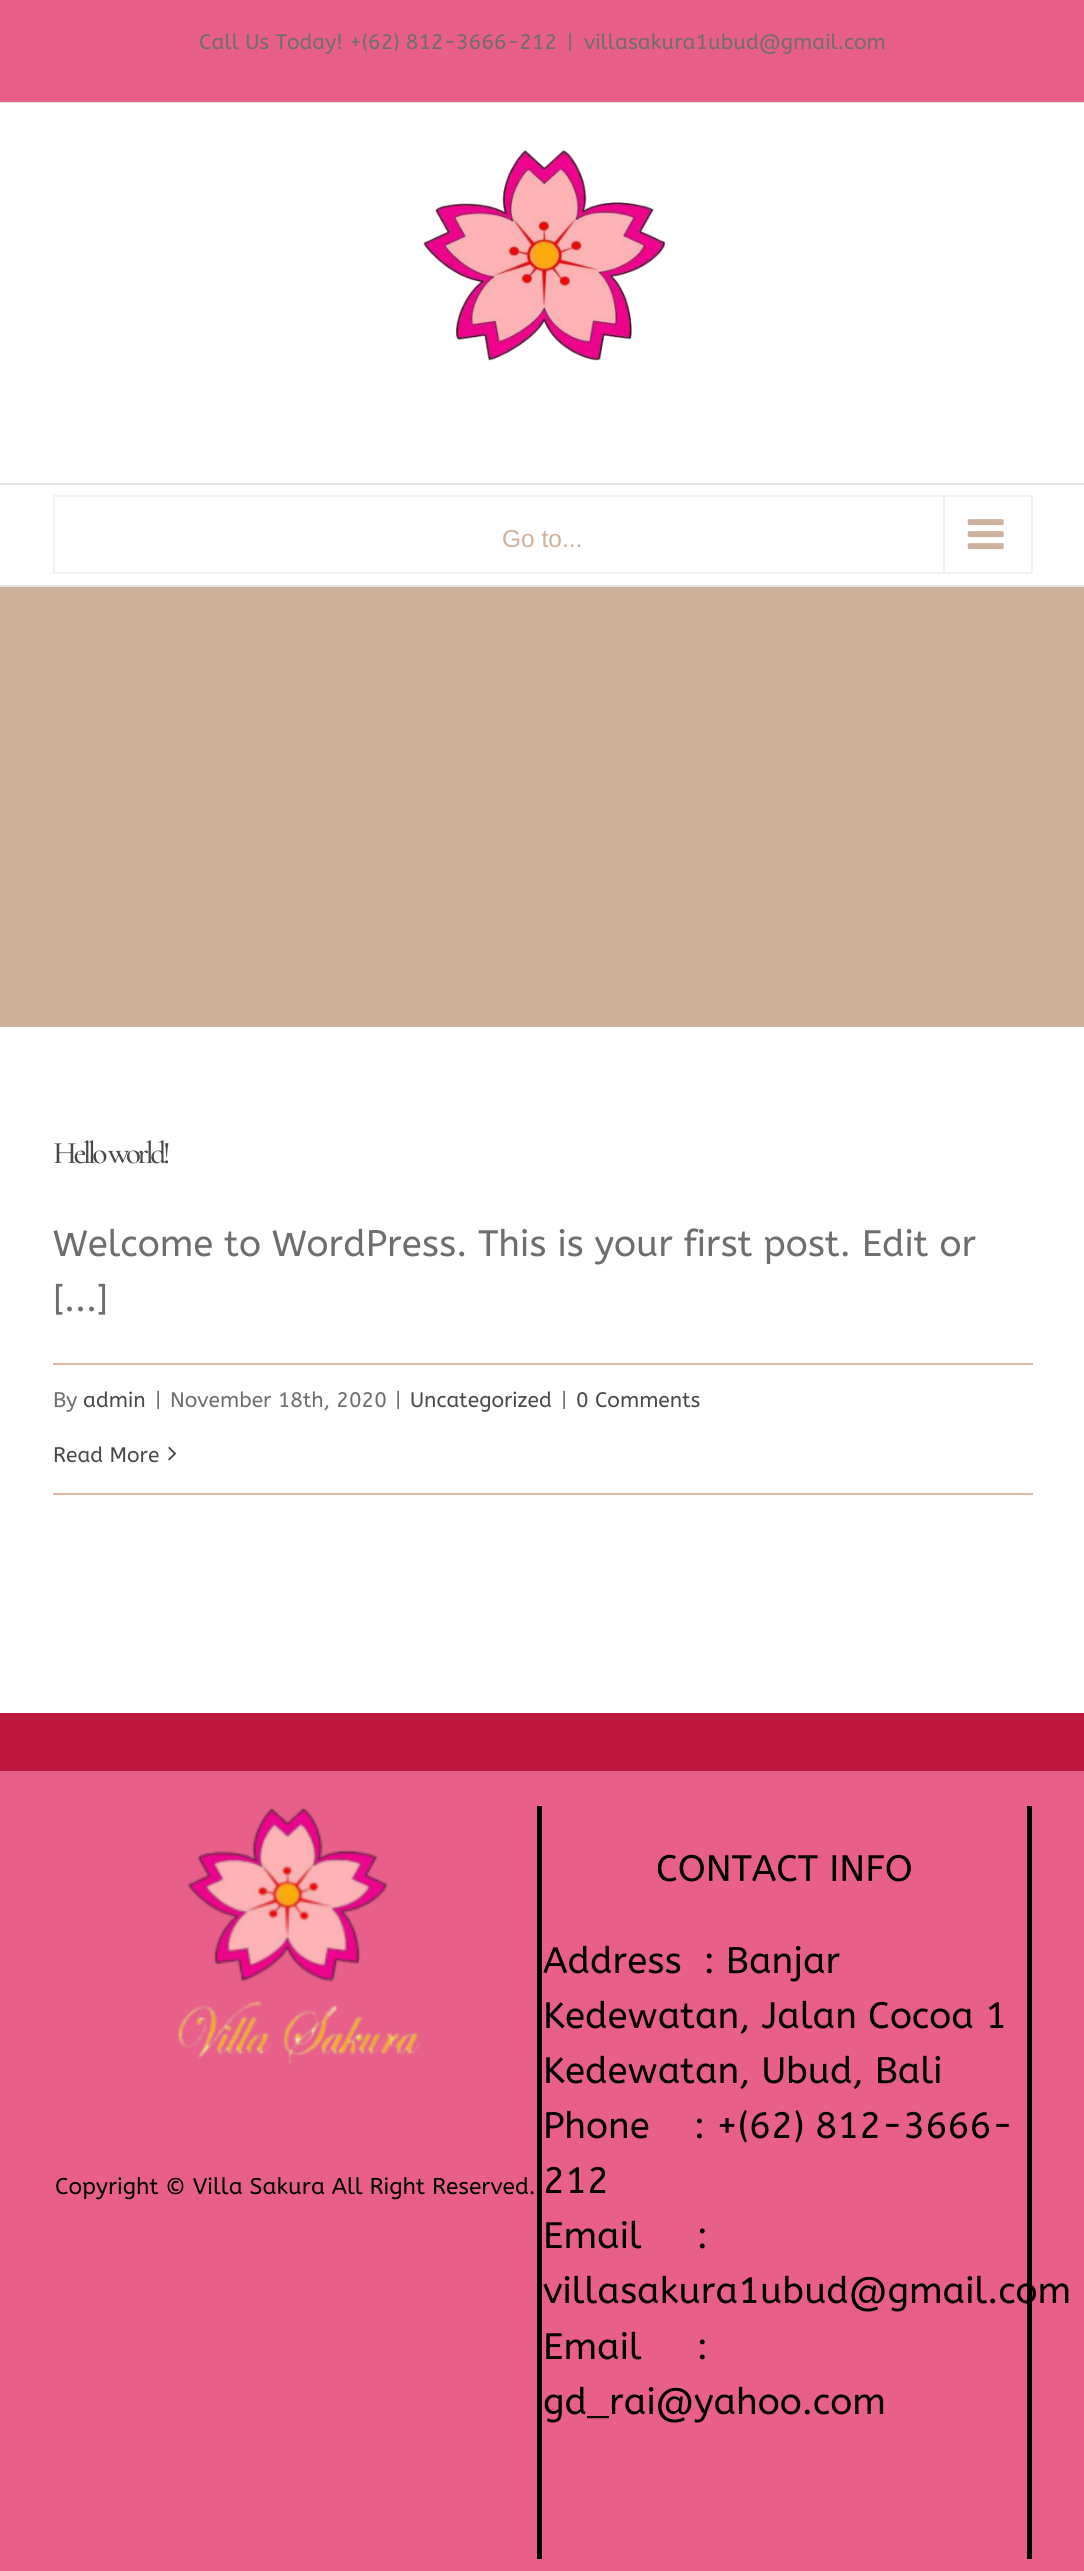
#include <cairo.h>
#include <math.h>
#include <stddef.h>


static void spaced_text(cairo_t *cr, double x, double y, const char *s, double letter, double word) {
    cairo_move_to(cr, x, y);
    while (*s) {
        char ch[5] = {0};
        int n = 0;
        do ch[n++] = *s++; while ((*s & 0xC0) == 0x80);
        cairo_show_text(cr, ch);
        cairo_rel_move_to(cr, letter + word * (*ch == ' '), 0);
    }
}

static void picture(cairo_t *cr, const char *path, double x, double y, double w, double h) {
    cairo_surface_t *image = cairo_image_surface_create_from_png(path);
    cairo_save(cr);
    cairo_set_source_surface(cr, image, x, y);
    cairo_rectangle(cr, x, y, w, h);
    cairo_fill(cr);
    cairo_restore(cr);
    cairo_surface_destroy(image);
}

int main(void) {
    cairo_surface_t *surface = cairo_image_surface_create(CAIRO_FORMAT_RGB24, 1084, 2571);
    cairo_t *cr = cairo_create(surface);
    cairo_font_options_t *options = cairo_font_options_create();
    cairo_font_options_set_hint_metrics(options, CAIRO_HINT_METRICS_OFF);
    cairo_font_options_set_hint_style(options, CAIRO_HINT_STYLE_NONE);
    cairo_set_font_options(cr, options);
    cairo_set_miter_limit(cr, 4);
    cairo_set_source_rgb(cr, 1, 1, 1);
    cairo_paint(cr);
    cairo_set_source_rgb(cr, 0.91, 0.373, 0.541);
    cairo_rectangle(cr, 0, 0, 1084, 102);
    cairo_fill(cr);
    cairo_set_source_rgb(cr, 0.898, 0.898, 0.898);
    cairo_rectangle(cr, 0, 102, 1084, 1);
    cairo_fill(cr);
    cairo_select_font_face(cr, "ABeeZee", CAIRO_FONT_SLANT_NORMAL, CAIRO_FONT_WEIGHT_NORMAL);
    cairo_set_font_size(cr, 21);
    cairo_set_source_rgb(cr, 0.431, 0.431, 0.431);
    cairo_move_to(cr, 199, 49);
    cairo_show_text(cr, "Call Us Today! +(62) 812-3666-212");
    cairo_move_to(cr, 567, 49);
    cairo_show_text(cr, "|");
    cairo_move_to(cr, 584, 49);
    cairo_show_text(cr, "villasakura1ubud@gmail.com");
    cairo_set_source_rgb(cr, 0.898, 0.898, 0.898);
    cairo_rectangle(cr, 0, 483, 1084, 2);
    cairo_fill(cr);
    picture(cr, "img1.png", 423, 150, 243, 211);
    cairo_rectangle(cr, 0, 585, 1084, 2);
    cairo_fill(cr);
    cairo_rectangle(cr, 54, 496, 978, 77);
    cairo_set_source_rgb(cr, 0.949, 0.949, 0.961);
    cairo_stroke(cr);
    cairo_select_font_face(cr, "Liberation Sans", CAIRO_FONT_SLANT_NORMAL, CAIRO_FONT_WEIGHT_NORMAL);
    cairo_set_font_size(cr, 24.5);
    cairo_set_source_rgb(cr, 0.808, 0.694, 0.612);
    cairo_move_to(cr, 502, 547);
    cairo_show_text(cr, "Go to...");
    cairo_set_source_rgb(cr, 0.949, 0.949, 0.961);
    cairo_rectangle(cr, 943, 497, 2, 75);
    cairo_fill(cr);
    picture(cr, "img2.png", 967, 519, 37, 31);
    cairo_set_source_rgb(cr, 0.808, 0.694, 0.612);
    cairo_rectangle(cr, 0, 587, 1084, 440);
    cairo_fill(cr);
    cairo_select_font_face(cr, "Cormorant Garamond Light", CAIRO_FONT_SLANT_NORMAL, CAIRO_FONT_WEIGHT_NORMAL);
    cairo_set_font_size(cr, 31.5);
    cairo_set_source_rgb(cr, 0.286, 0.286, 0.286);
    spaced_text(cr, 53, 1163, "Hello world!", -3.5, 0);
    cairo_select_font_face(cr, "ABeeZee", CAIRO_FONT_SLANT_NORMAL, CAIRO_FONT_WEIGHT_NORMAL);
    cairo_set_font_size(cr, 36.75);
    cairo_set_source_rgb(cr, 0.431, 0.431, 0.431);
    cairo_move_to(cr, 53, 1256);
    cairo_show_text(cr, "Welcome to WordPress. This is your first post. Edit or");
    cairo_move_to(cr, 53, 1311);
    cairo_show_text(cr, "[...]");
    cairo_set_source_rgb(cr, 0.863, 0.729, 0.631);
    cairo_rectangle(cr, 53, 1363, 980, 2);
    cairo_fill(cr);
    cairo_rectangle(cr, 53, 1493, 980, 2);
    cairo_fill(cr);
    cairo_set_font_size(cr, 21);
    cairo_set_source_rgb(cr, 0.431, 0.431, 0.431);
    cairo_move_to(cr, 53, 1407);
    cairo_show_text(cr, "By");
    cairo_set_source_rgb(cr, 0.286, 0.286, 0.286);
    cairo_move_to(cr, 83, 1407);
    cairo_show_text(cr, "admin");
    cairo_set_source_rgb(cr, 0.431, 0.431, 0.431);
    cairo_move_to(cr, 155, 1407);
    cairo_show_text(cr, "|");
    cairo_move_to(cr, 170, 1407);
    cairo_show_text(cr, "November 18th, 2020");
    cairo_move_to(cr, 395, 1407);
    cairo_show_text(cr, "|");
    cairo_set_source_rgb(cr, 0.286, 0.286, 0.286);
    cairo_move_to(cr, 410, 1407);
    cairo_show_text(cr, "Uncategorized");
    cairo_set_source_rgb(cr, 0.431, 0.431, 0.431);
    cairo_move_to(cr, 561, 1407);
    cairo_show_text(cr, "|");
    cairo_set_source_rgb(cr, 0.286, 0.286, 0.286);
    cairo_move_to(cr, 576, 1407);
    cairo_show_text(cr, "0 Comments");
    cairo_move_to(cr, 53, 1462);
    cairo_show_text(cr, "Read More");
    picture(cr, "img3.png", 168, 1446, 9, 15);
    cairo_set_source_rgb(cr, 0.91, 0.373, 0.541);
    cairo_rectangle(cr, 0, 1771, 1084, 800);
    cairo_fill(cr);
    cairo_set_source_rgb(cr, 0.737, 0.094, 0.243);
    cairo_rectangle(cr, 0, 1713, 1084, 58);
    cairo_fill(cr);
    cairo_set_source_rgb(cr, 0, 0, 0);
    cairo_rectangle(cr, 537, 1806, 5, 753);
    cairo_fill(cr);
    picture(cr, "img4.png", 177, 1807, 244, 258);
    cairo_set_font_size(cr, 22.75);
    cairo_move_to(cr, 55, 2194);
    cairo_show_text(cr, "Copyright © Villa Sakura All Right Reserved.");
    cairo_rectangle(cr, 1027, 1806, 5, 753);
    cairo_fill(cr);
    cairo_set_font_size(cr, 36.75);
    cairo_move_to(cr, 656, 1881);
    cairo_show_text(cr, "CONTACT INFO");
    cairo_move_to(cr, 543, 1973);
    cairo_show_text(cr, "Address  : Banjar");
    cairo_move_to(cr, 543, 2028);
    cairo_show_text(cr, "Kedewatan, Jalan Cocoa 1");
    cairo_move_to(cr, 543, 2083);
    cairo_show_text(cr, "Kedewatan, Ubud, Bali");
    cairo_move_to(cr, 543, 2138);
    cairo_show_text(cr, "Phone    : +(62) 812-3666-");
    cairo_move_to(cr, 543, 2193);
    cairo_show_text(cr, "212");
    cairo_move_to(cr, 543, 2248);
    cairo_show_text(cr, "Email     :");
    cairo_move_to(cr, 543, 2303);
    cairo_show_text(cr, "villasakura1ubud@gmail.com");
    cairo_move_to(cr, 543, 2359);
    cairo_show_text(cr, "Email     :");
    cairo_move_to(cr, 543, 2414);
    cairo_show_text(cr, "gd_rai@yahoo.com");
    cairo_surface_write_to_png(surface, "page.png");
    cairo_font_options_destroy(options);
    cairo_destroy(cr);
    cairo_surface_destroy(surface);
    return 0;
}
